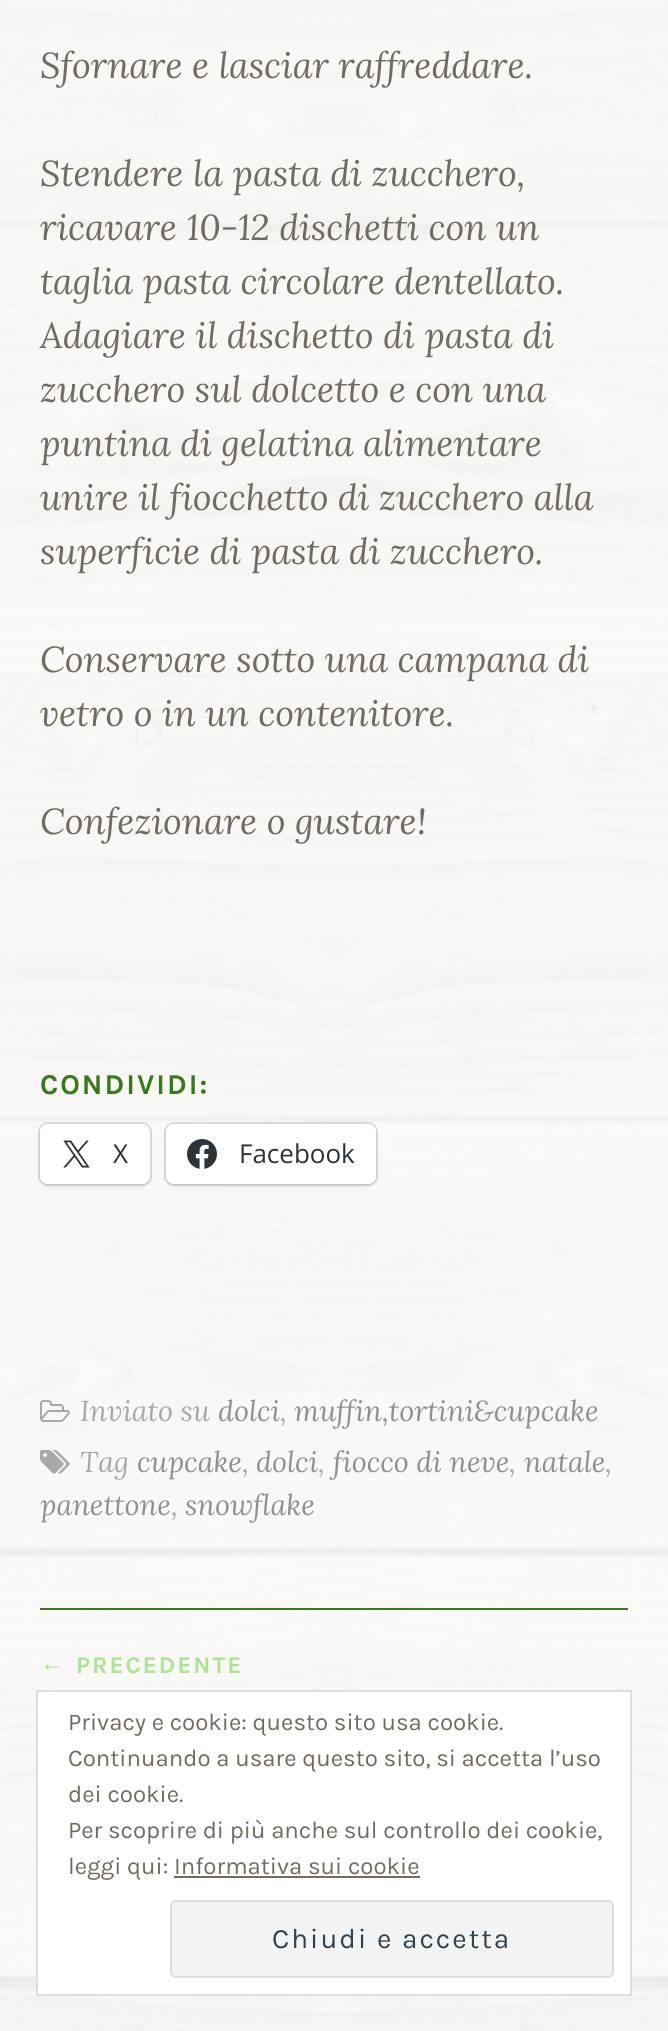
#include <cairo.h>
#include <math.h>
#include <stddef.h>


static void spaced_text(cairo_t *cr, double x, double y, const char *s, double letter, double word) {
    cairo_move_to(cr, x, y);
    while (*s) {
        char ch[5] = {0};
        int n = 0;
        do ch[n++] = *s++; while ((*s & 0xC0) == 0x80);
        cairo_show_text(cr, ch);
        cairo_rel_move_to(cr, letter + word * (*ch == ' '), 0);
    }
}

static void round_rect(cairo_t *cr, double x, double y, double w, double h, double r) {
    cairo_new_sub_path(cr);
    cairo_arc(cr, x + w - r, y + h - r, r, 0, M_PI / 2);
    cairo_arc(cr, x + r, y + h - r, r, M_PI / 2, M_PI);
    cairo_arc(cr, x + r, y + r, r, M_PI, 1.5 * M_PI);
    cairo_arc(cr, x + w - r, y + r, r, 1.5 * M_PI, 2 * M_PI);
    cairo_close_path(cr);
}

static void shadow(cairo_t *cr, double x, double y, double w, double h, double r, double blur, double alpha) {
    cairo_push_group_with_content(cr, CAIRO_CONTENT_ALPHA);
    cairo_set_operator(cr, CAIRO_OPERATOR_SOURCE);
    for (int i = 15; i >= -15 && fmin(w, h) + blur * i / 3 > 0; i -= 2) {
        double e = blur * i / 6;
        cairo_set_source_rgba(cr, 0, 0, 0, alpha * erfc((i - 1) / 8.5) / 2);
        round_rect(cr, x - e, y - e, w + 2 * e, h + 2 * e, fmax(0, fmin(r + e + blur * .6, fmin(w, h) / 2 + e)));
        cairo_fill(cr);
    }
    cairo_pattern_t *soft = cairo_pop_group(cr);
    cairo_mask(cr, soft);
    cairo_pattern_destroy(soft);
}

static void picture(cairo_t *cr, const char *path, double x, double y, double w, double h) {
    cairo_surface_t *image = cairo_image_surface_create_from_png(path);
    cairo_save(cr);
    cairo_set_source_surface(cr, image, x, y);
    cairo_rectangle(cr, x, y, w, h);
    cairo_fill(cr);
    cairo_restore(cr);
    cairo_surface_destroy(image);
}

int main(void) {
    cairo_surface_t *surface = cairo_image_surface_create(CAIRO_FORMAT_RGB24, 668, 2031);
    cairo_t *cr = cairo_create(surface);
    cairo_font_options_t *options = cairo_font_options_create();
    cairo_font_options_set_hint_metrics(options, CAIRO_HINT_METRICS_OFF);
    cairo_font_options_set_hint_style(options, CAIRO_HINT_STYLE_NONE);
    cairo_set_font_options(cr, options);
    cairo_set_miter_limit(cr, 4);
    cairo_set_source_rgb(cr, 1, 1, 1);
    cairo_paint(cr);
    picture(cr, "img1.png", 0, 0, 668, 2031);
    cairo_select_font_face(cr, "Lora", CAIRO_FONT_SLANT_ITALIC, CAIRO_FONT_WEIGHT_NORMAL);
    cairo_set_font_size(cr, 36);
    cairo_set_source_rgb(cr, 0.447, 0.42, 0.376);
    cairo_move_to(cr, 40, 78);
    cairo_show_text(cr, "Sfornare e lasciar raffreddare.");
    cairo_move_to(cr, 40, 186);
    cairo_show_text(cr, "Stendere la pasta di zucchero,");
    cairo_move_to(cr, 40, 240);
    cairo_show_text(cr, "ricavare 10-12 dischetti con un");
    cairo_move_to(cr, 40, 294);
    cairo_show_text(cr, "taglia pasta circolare dentellato.");
    cairo_move_to(cr, 40, 348);
    cairo_show_text(cr, "Adagiare il dischetto di pasta di");
    cairo_move_to(cr, 40, 402);
    cairo_show_text(cr, "zucchero sul dolcetto e con una");
    cairo_move_to(cr, 40, 456);
    cairo_show_text(cr, "puntina di gelatina alimentare");
    cairo_move_to(cr, 40, 510);
    cairo_show_text(cr, "unire il fiocchetto di zucchero alla");
    cairo_move_to(cr, 40, 564);
    cairo_show_text(cr, "superficie di pasta di zucchero.");
    cairo_move_to(cr, 40, 672);
    cairo_show_text(cr, "Conservare sotto una campana di");
    cairo_move_to(cr, 40, 726);
    cairo_show_text(cr, "vetro o in un contenitore.");
    cairo_move_to(cr, 40, 834);
    cairo_show_text(cr, "Confezionare o gustare!");
    cairo_select_font_face(cr, "Karla", CAIRO_FONT_SLANT_NORMAL, CAIRO_FONT_WEIGHT_BOLD);
    cairo_set_font_size(cr, 28.75);
    cairo_set_source_rgb(cr, 0.216, 0.482, 0.094);
    spaced_text(cr, 40, 1094, "CONDIVIDI:", 2, 0);
    round_rect(cr, 39, 1123, 112, 62, 9);
    cairo_set_source_rgba(cr, 0, 0, 0, 0.12);
    cairo_stroke(cr);
    cairo_set_source_rgb(cr, 0, 0, 0);
    shadow(cr, 40, 1126, 110, 60, 8, 2, 0.12);
    cairo_set_source_rgb(cr, 1, 1, 1);
    round_rect(cr, 40, 1124, 110, 60, 8);
    cairo_fill(cr);
    picture(cr, "img2.png", 63, 1140, 27, 28);
    cairo_select_font_face(cr, "Open Sans", CAIRO_FONT_SLANT_NORMAL, CAIRO_FONT_WEIGHT_NORMAL);
    cairo_set_font_size(cr, 26);
    cairo_set_source_rgb(cr, 0.173, 0.2, 0.22);
    cairo_move_to(cr, 113, 1163);
    cairo_show_text(cr, "X");
    round_rect(cr, 165, 1123, 212, 62, 9);
    cairo_set_source_rgba(cr, 0, 0, 0, 0.12);
    cairo_stroke(cr);
    cairo_set_source_rgb(cr, 0, 0, 0);
    shadow(cr, 166, 1126, 210, 60, 8, 2, 0.12);
    cairo_set_source_rgb(cr, 1, 1, 1);
    round_rect(cr, 166, 1124, 210, 60, 8);
    cairo_fill(cr);
    picture(cr, "img3.png", 187, 1139, 30, 30);
    cairo_set_source_rgb(cr, 0.173, 0.2, 0.22);
    cairo_move_to(cr, 239, 1163);
    cairo_show_text(cr, "Facebook");
    picture(cr, "img4.png", 40, 1400, 30, 22);
    cairo_select_font_face(cr, "Lora", CAIRO_FONT_SLANT_ITALIC, CAIRO_FONT_WEIGHT_NORMAL);
    cairo_set_font_size(cr, 28.75);
    cairo_set_source_rgb(cr, 0.663, 0.663, 0.663);
    cairo_move_to(cr, 80, 1421);
    cairo_show_text(cr, "Inviato su");
    cairo_set_source_rgb(cr, 0.565, 0.565, 0.565);
    cairo_move_to(cr, 218, 1421);
    cairo_show_text(cr, "dolci");
    cairo_set_source_rgb(cr, 0.663, 0.663, 0.663);
    cairo_move_to(cr, 280, 1421);
    cairo_show_text(cr, ",");
    cairo_set_source_rgb(cr, 0.565, 0.565, 0.565);
    cairo_move_to(cr, 294, 1421);
    cairo_show_text(cr, "muffin,tortini&cupcake");
    picture(cr, "img5.png", 40, 1450, 30, 24);
    cairo_set_source_rgb(cr, 0.663, 0.663, 0.663);
    cairo_move_to(cr, 80, 1472);
    cairo_show_text(cr, "Tag");
    cairo_set_source_rgb(cr, 0.565, 0.565, 0.565);
    cairo_move_to(cr, 137, 1472);
    cairo_show_text(cr, "cupcake");
    cairo_set_source_rgb(cr, 0.663, 0.663, 0.663);
    cairo_move_to(cr, 242, 1472);
    cairo_show_text(cr, ",");
    cairo_set_source_rgb(cr, 0.565, 0.565, 0.565);
    cairo_move_to(cr, 256, 1472);
    cairo_show_text(cr, "dolci");
    cairo_set_source_rgb(cr, 0.663, 0.663, 0.663);
    cairo_move_to(cr, 318, 1472);
    cairo_show_text(cr, ",");
    cairo_set_source_rgb(cr, 0.565, 0.565, 0.565);
    cairo_move_to(cr, 333, 1472);
    cairo_show_text(cr, "fiocco di neve");
    cairo_set_source_rgb(cr, 0.663, 0.663, 0.663);
    cairo_move_to(cr, 509, 1472);
    cairo_show_text(cr, ",");
    cairo_set_source_rgb(cr, 0.565, 0.565, 0.565);
    cairo_move_to(cr, 524, 1472);
    cairo_show_text(cr, "natale");
    cairo_set_source_rgb(cr, 0.663, 0.663, 0.663);
    cairo_move_to(cr, 605, 1472);
    cairo_show_text(cr, ",");
    cairo_set_source_rgb(cr, 0.565, 0.565, 0.565);
    cairo_move_to(cr, 40, 1515);
    cairo_show_text(cr, "panettone");
    cairo_set_source_rgb(cr, 0.663, 0.663, 0.663);
    cairo_move_to(cr, 171, 1515);
    cairo_show_text(cr, ",");
    cairo_set_source_rgb(cr, 0.565, 0.565, 0.565);
    cairo_move_to(cr, 185, 1515);
    cairo_show_text(cr, "snowflake");
    cairo_set_source_rgb(cr, 0.216, 0.482, 0.094);
    cairo_rectangle(cr, 40, 1608, 588, 2);
    cairo_fill(cr);
    cairo_select_font_face(cr, "Liberation Serif", CAIRO_FONT_SLANT_NORMAL, CAIRO_FONT_WEIGHT_NORMAL);
    cairo_set_font_size(cr, 24);
    cairo_set_source_rgb(cr, 0.671, 0.898, 0.565);
    spaced_text(cr, 40, 1671, "←", 2, 0);
    cairo_select_font_face(cr, "Karla", CAIRO_FONT_SLANT_NORMAL, CAIRO_FONT_WEIGHT_BOLD);
    spaced_text(cr, 76, 1673, "PRECEDENTE", 2, 0);
    cairo_set_source_rgb(cr, 1, 1, 1);
    cairo_rectangle(cr, 37, 1691, 594, 304);
    cairo_fill_preserve(cr);
    cairo_set_source_rgb(cr, 0.871, 0.871, 0.871);
    cairo_stroke(cr);
    cairo_select_font_face(cr, "Karla", CAIRO_FONT_SLANT_NORMAL, CAIRO_FONT_WEIGHT_NORMAL);
    cairo_set_source_rgb(cr, 0.447, 0.42, 0.376);
    cairo_move_to(cr, 68, 1730);
    cairo_show_text(cr, "Privacy e cookie: questo sito usa cookie.");
    cairo_move_to(cr, 68, 1766);
    cairo_show_text(cr, "Continuando a usare questo sito, si accetta l’uso");
    cairo_move_to(cr, 68, 1802);
    cairo_show_text(cr, "dei cookie.");
    cairo_move_to(cr, 68, 1838);
    cairo_show_text(cr, "Per scoprire di più anche sul controllo dei cookie,");
    cairo_move_to(cr, 68, 1874);
    cairo_show_text(cr, "leggi qui: Informativa sui cookie");
    cairo_rectangle(cr, 174, 1876, 246, 2);
    cairo_fill(cr);
    cairo_set_source_rgb(cr, 0.953, 0.953, 0.953);
    round_rect(cr, 171, 1901, 442, 76, 5);
    cairo_fill_preserve(cr);
    cairo_set_source_rgb(cr, 0.871, 0.871, 0.871);
    cairo_stroke(cr);
    cairo_set_font_size(cr, 28);
    cairo_set_source_rgb(cr, 0.18, 0.267, 0.325);
    spaced_text(cr, 272, 1948, "Chiudi e accetta", 2, 0);
    cairo_surface_write_to_png(surface, "page.png");
    cairo_font_options_destroy(options);
    cairo_destroy(cr);
    cairo_surface_destroy(surface);
    return 0;
}
